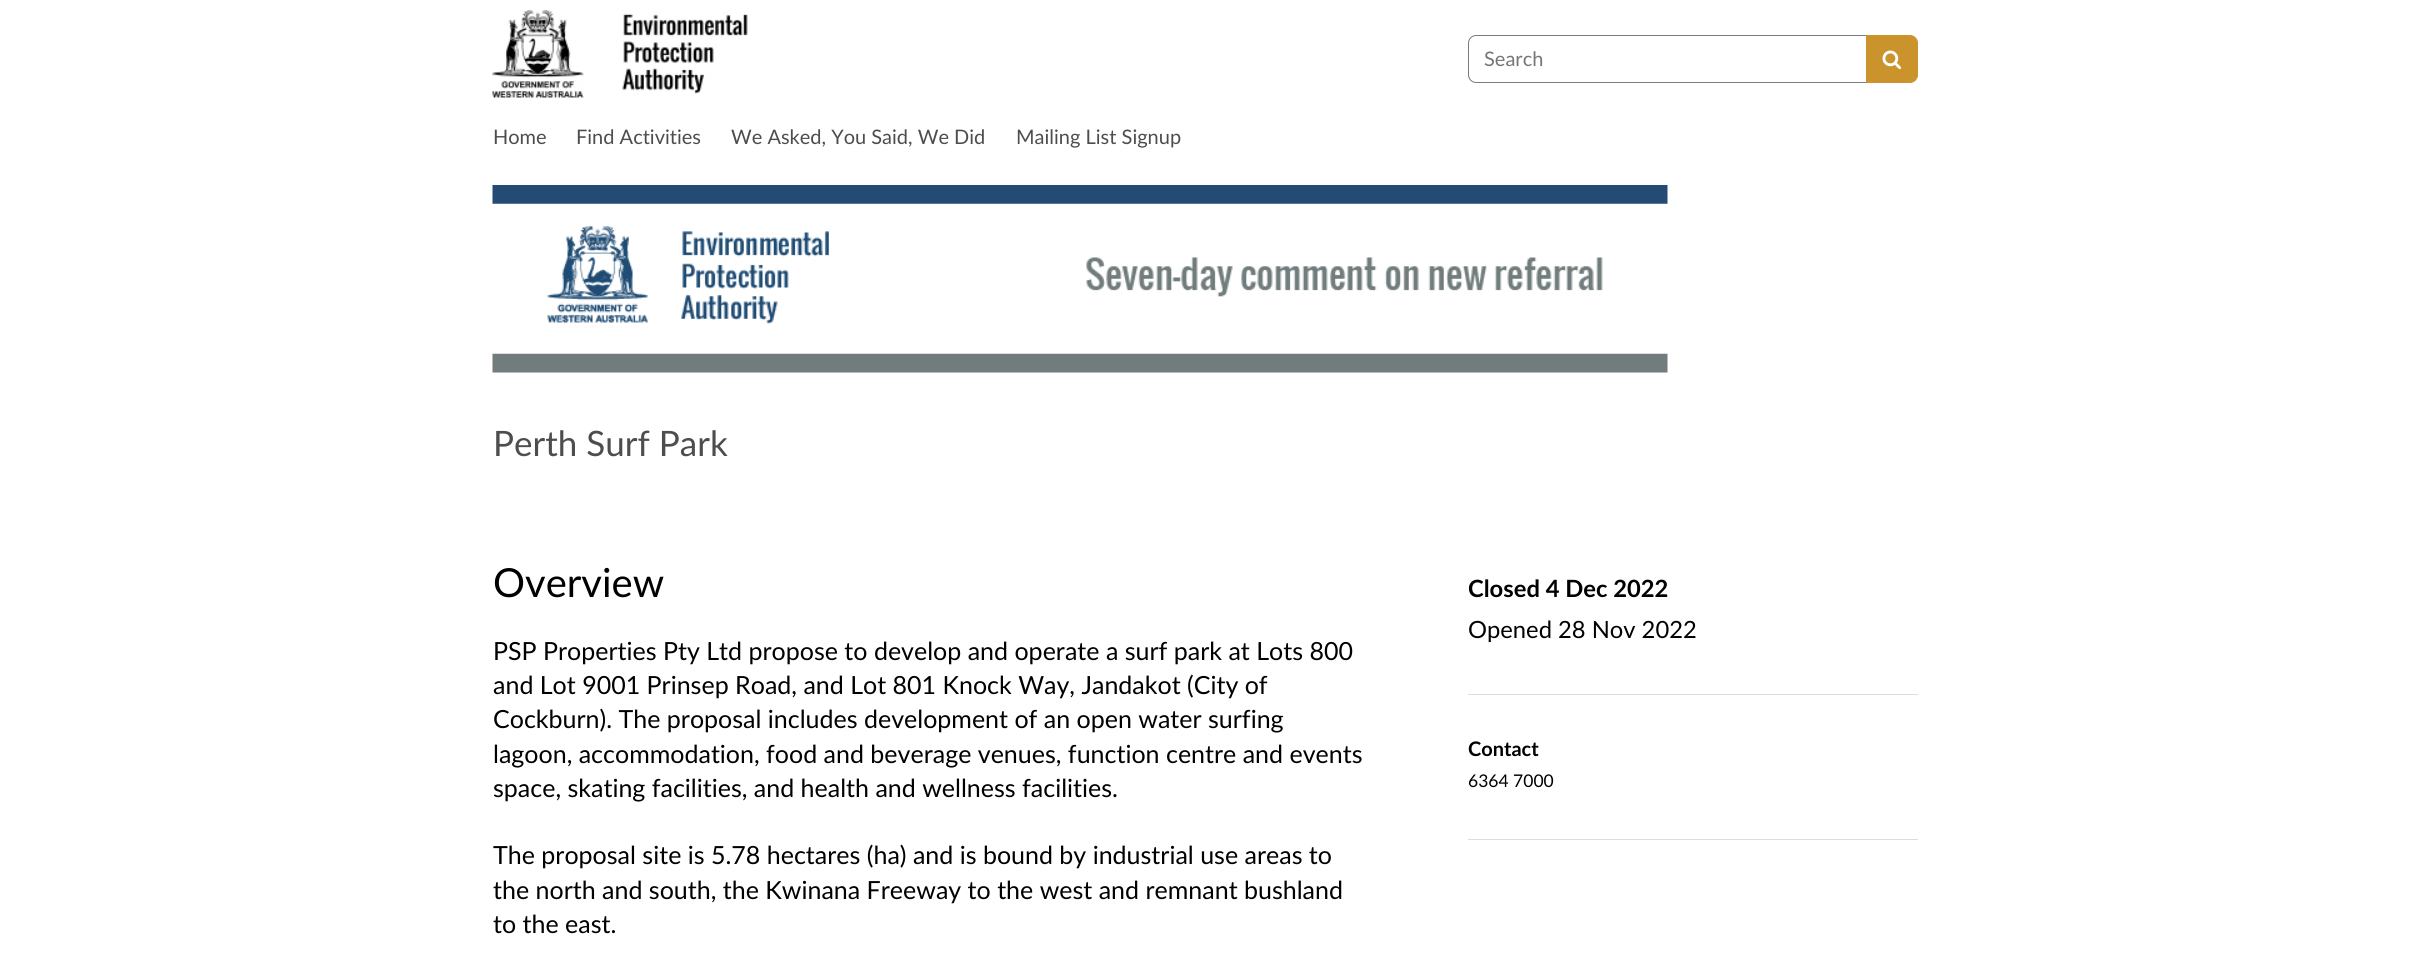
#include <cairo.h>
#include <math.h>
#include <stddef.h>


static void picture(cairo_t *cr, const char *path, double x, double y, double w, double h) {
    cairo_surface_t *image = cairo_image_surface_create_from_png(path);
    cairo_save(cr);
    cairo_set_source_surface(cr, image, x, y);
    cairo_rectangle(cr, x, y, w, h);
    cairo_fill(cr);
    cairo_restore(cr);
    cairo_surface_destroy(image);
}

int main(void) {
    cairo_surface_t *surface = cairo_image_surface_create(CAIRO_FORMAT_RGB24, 2409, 973);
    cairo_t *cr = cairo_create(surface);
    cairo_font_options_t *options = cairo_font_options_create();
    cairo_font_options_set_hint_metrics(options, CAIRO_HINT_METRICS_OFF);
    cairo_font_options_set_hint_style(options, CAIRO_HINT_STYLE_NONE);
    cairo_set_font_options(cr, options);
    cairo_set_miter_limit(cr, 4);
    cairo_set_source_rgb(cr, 1, 1, 1);
    cairo_paint(cr);
    picture(cr, "img1.png", 492, 10, 256, 88);
    cairo_new_path(cr);
    cairo_move_to(cr, 1476, 35.5);
    cairo_line_to(cr, 1867.5, 35.5);
    cairo_line_to(cr, 1867.5, 82.5);
    cairo_line_to(cr, 1476, 82.5);
    cairo_curve_to(cr, 1472, 82.5, 1468.5, 79, 1468.5, 75);
    cairo_line_to(cr, 1468.5, 43);
    cairo_curve_to(cr, 1468.5, 39, 1472, 35.5, 1476, 35.5);
    cairo_close_path(cr);
    cairo_set_source_rgb(cr, 0.478, 0.478, 0.502);
    cairo_set_line_width(cr, 1);
    cairo_stroke(cr);
    cairo_select_font_face(cr, "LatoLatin", CAIRO_FONT_SLANT_NORMAL, CAIRO_FONT_WEIGHT_NORMAL);
    cairo_set_font_size(cr, 20);
    cairo_set_source_rgb(cr, 0.463, 0.463, 0.463);
    cairo_move_to(cr, 1484, 66);
    cairo_show_text(cr, "Search");
    cairo_set_source_rgb(cr, 0.792, 0.576, 0.173);
    cairo_new_path(cr);
    cairo_move_to(cr, 1866.5, 35.5);
    cairo_line_to(cr, 1910, 35.5);
    cairo_curve_to(cr, 1914, 35.5, 1917.5, 39, 1917.5, 43);
    cairo_line_to(cr, 1917.5, 75);
    cairo_curve_to(cr, 1917.5, 79, 1914, 82.5, 1910, 82.5);
    cairo_line_to(cr, 1866.5, 82.5);
    cairo_close_path(cr);
    cairo_fill_preserve(cr);
    cairo_stroke(cr);
    picture(cr, "img2.png", 1882, 50, 20, 20);
    cairo_set_source_rgb(cr, 0.302, 0.302, 0.31);
    cairo_move_to(cr, 493, 144);
    cairo_show_text(cr, "Home");
    cairo_move_to(cr, 576, 144);
    cairo_show_text(cr, "Find Activities");
    cairo_move_to(cr, 731, 144);
    cairo_show_text(cr, "We Asked, You Said, We Did");
    cairo_move_to(cr, 1016, 144);
    cairo_show_text(cr, "Mailing List Signup");
    picture(cr, "img3.png", 492, 185, 1176, 188);
    cairo_set_font_size(cr, 35);
    cairo_move_to(cr, 493, 456);
    cairo_show_text(cr, "Perth Surf Park");
    cairo_set_font_size(cr, 40);
    cairo_set_source_rgb(cr, 0, 0, 0);
    cairo_move_to(cr, 493, 597);
    cairo_show_text(cr, "Overview");
    cairo_set_font_size(cr, 25);
    cairo_move_to(cr, 493, 660);
    cairo_show_text(cr, "PSP Properties Pty Ltd propose to develop and operate a surf park at Lots 800");
    cairo_move_to(cr, 493, 694);
    cairo_show_text(cr, "and Lot 9001 Prinsep Road, and Lot 801 Knock Way, Jandakot (City of");
    cairo_move_to(cr, 493, 728);
    cairo_show_text(cr, "Cockburn). The proposal includes development of an open water surfing");
    cairo_move_to(cr, 493, 763);
    cairo_show_text(cr, "lagoon, accommodation, food and beverage venues, function centre and events");
    cairo_move_to(cr, 493, 797);
    cairo_show_text(cr, "space, skating facilities, and health and wellness facilities.");
    cairo_move_to(cr, 493, 864);
    cairo_show_text(cr, "The proposal site is 5.78 hectares (ha) and is bound by industrial use areas to");
    cairo_move_to(cr, 493, 899);
    cairo_show_text(cr, "the north and south, the Kwinana Freeway to the west and remnant bushland");
    cairo_move_to(cr, 493, 933);
    cairo_show_text(cr, "to the east.");
    cairo_set_source_rgb(cr, 0.867, 0.867, 0.867);
    cairo_rectangle(cr, 1468, 694, 450, 1);
    cairo_fill(cr);
    cairo_select_font_face(cr, "LatoLatin", CAIRO_FONT_SLANT_NORMAL, CAIRO_FONT_WEIGHT_BOLD);
    cairo_set_font_size(cr, 23.75);
    cairo_set_source_rgb(cr, 0, 0, 0);
    cairo_move_to(cr, 1468, 597);
    cairo_show_text(cr, "Closed 4 Dec 2022");
    cairo_select_font_face(cr, "LatoLatin", CAIRO_FONT_SLANT_NORMAL, CAIRO_FONT_WEIGHT_NORMAL);
    cairo_move_to(cr, 1468, 638);
    cairo_show_text(cr, "Opened 28 Nov 2022");
    cairo_set_source_rgb(cr, 0.867, 0.867, 0.867);
    cairo_rectangle(cr, 1468, 839, 450, 1);
    cairo_fill(cr);
    cairo_select_font_face(cr, "LatoLatin", CAIRO_FONT_SLANT_NORMAL, CAIRO_FONT_WEIGHT_BOLD);
    cairo_set_font_size(cr, 20);
    cairo_set_source_rgb(cr, 0, 0, 0);
    cairo_move_to(cr, 1468, 756);
    cairo_show_text(cr, "Contact");
    cairo_select_font_face(cr, "LatoLatin", CAIRO_FONT_SLANT_NORMAL, CAIRO_FONT_WEIGHT_NORMAL);
    cairo_set_font_size(cr, 17.5);
    cairo_move_to(cr, 1468, 787);
    cairo_show_text(cr, "6364 7000");
    cairo_surface_write_to_png(surface, "page.png");
    cairo_font_options_destroy(options);
    cairo_destroy(cr);
    cairo_surface_destroy(surface);
    return 0;
}
